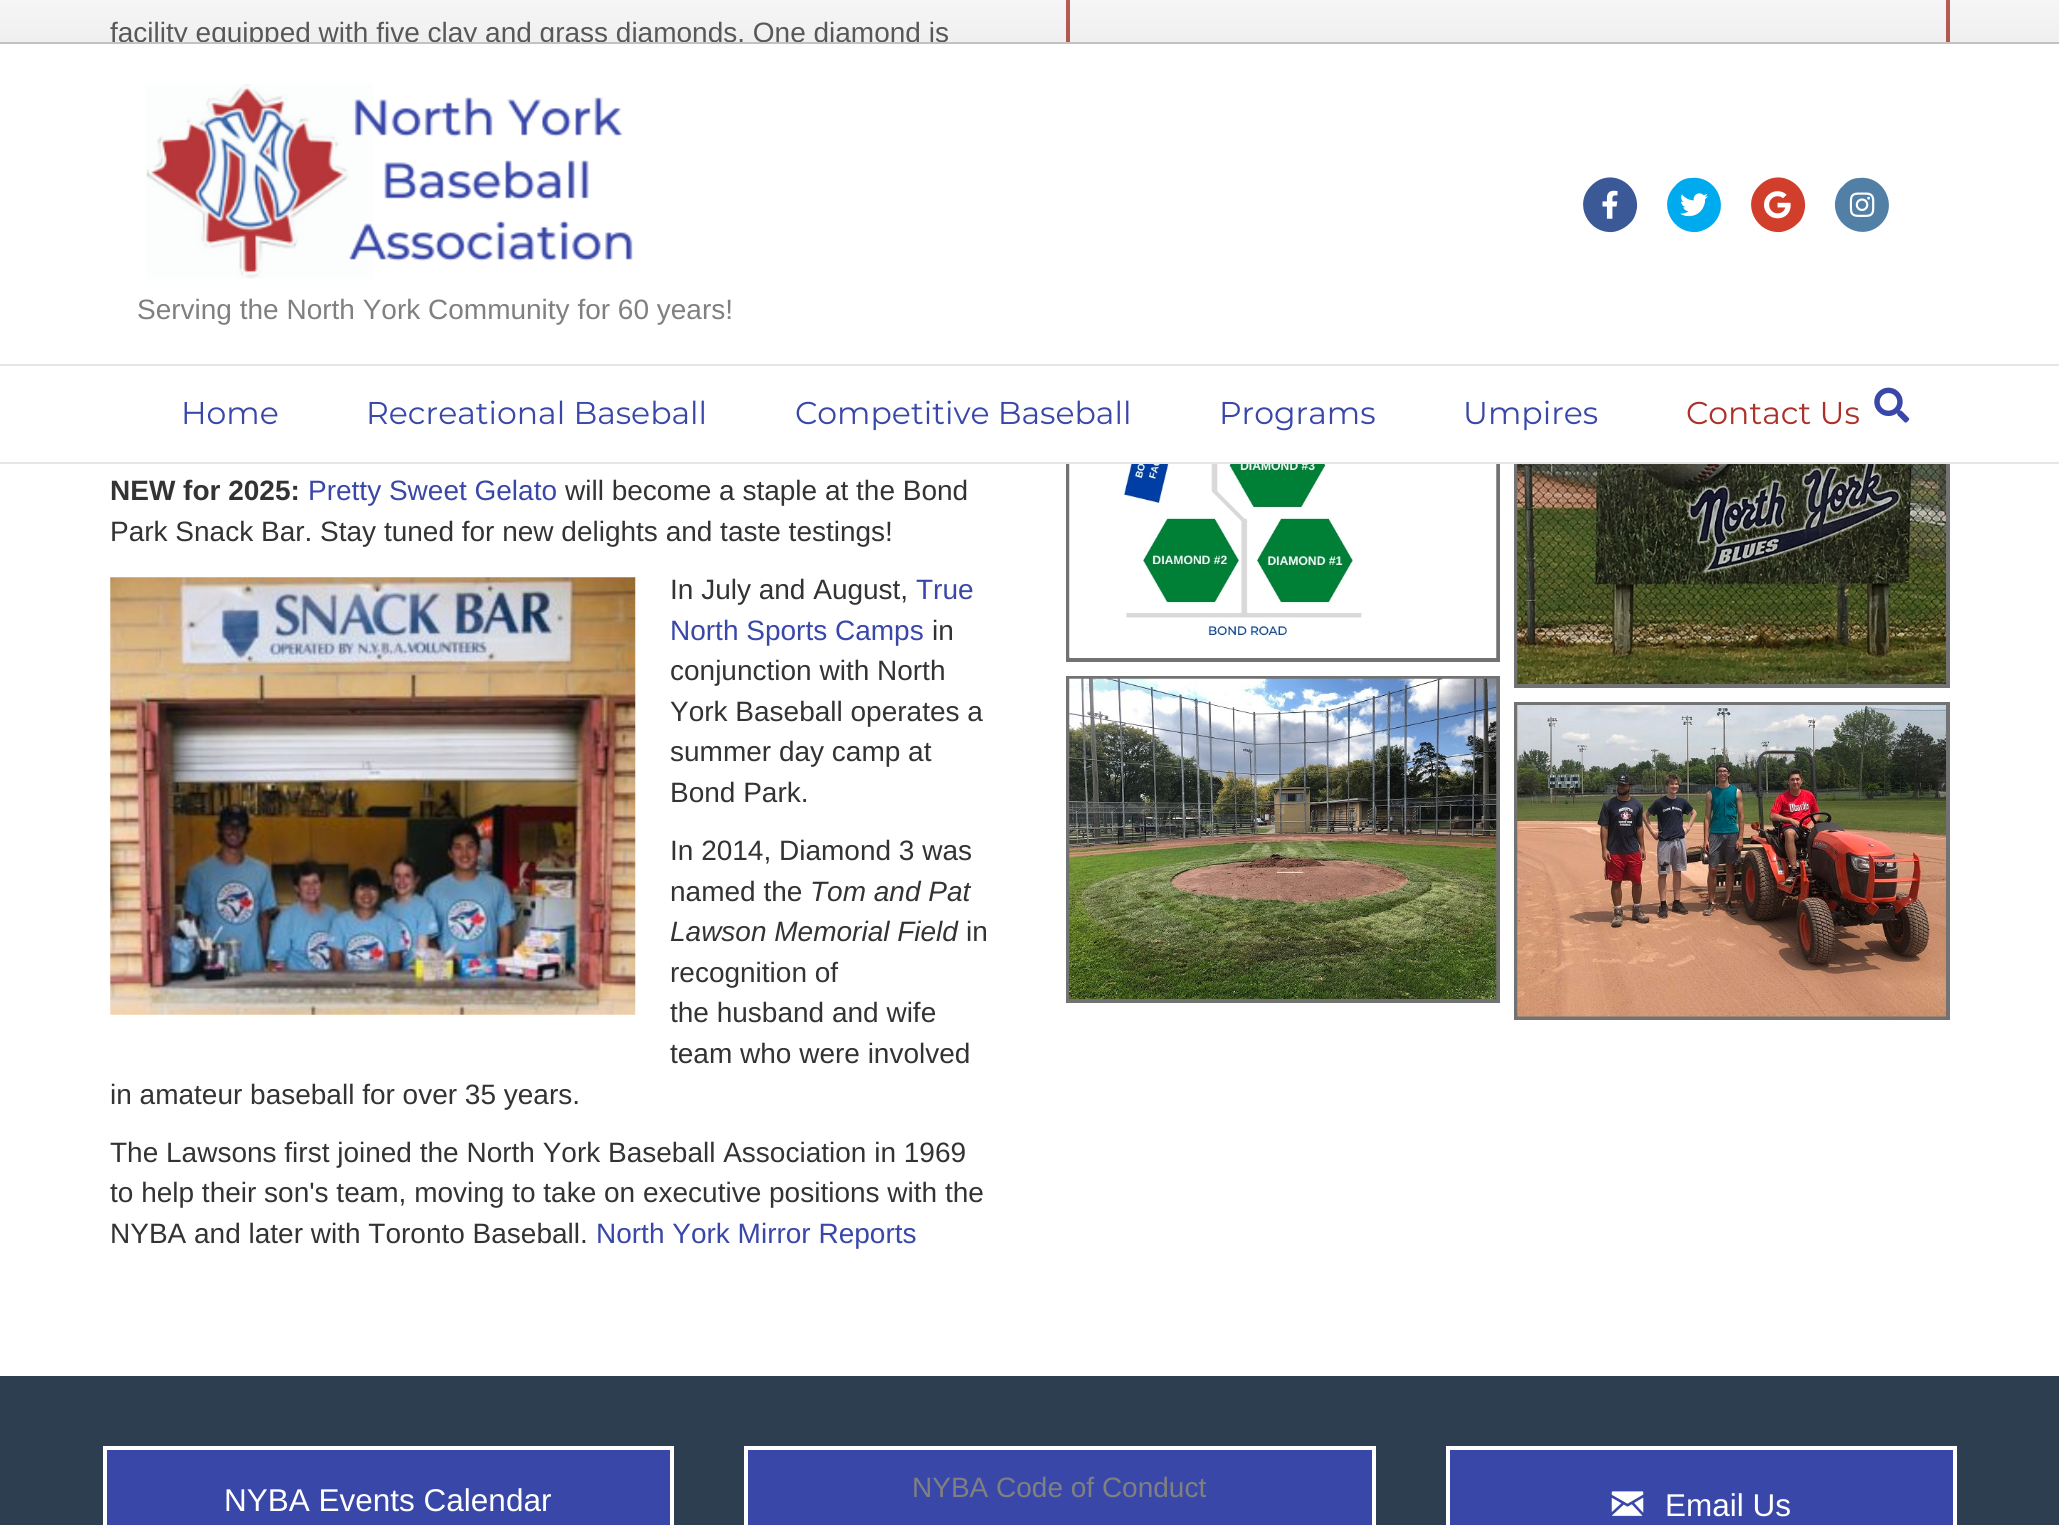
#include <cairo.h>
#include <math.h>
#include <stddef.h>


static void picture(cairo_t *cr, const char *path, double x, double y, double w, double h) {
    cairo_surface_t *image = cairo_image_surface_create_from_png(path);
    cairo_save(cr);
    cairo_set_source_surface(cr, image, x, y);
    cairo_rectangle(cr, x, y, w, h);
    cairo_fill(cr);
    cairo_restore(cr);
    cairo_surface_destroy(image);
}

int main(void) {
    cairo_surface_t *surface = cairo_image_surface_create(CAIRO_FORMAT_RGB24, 2059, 1525);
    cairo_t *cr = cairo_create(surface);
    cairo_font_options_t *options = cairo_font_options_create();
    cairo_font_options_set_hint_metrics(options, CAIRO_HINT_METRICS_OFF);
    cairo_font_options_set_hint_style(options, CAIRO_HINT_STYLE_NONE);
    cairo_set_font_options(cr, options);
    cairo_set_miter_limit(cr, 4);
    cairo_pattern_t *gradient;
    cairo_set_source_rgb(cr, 1, 1, 1);
    cairo_paint(cr);
    cairo_select_font_face(cr, "Liberation Sans", CAIRO_FONT_SLANT_NORMAL, CAIRO_FONT_WEIGHT_NORMAL);
    cairo_set_font_size(cr, 28);
    cairo_set_source_rgb(cr, 0.2, 0.2, 0.2);
    cairo_move_to(cr, 110, 42);
    cairo_show_text(cr, "facility equipped with five clay and grass diamonds. One diamond is");
    cairo_rectangle(cr, 1068, -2, 880, 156);
    cairo_set_source_rgb(cr, 0.675, 0.192, 0.165);
    cairo_set_line_width(cr, 4);
    cairo_stroke(cr);
    gradient = cairo_pattern_create_linear(1030, 0, 1030, 42);
    cairo_pattern_add_color_stop_rgba(gradient, 0, 0.859, 0.859, 0.859, 0.25);
    cairo_pattern_add_color_stop_rgba(gradient, 1, 0.761, 0.761, 0.761, 0.25);
    cairo_set_source(cr, gradient);
    cairo_pattern_destroy(gradient);
    cairo_rectangle(cr, 0, 0, 2059, 42);
    cairo_fill(cr);
    cairo_set_source_rgb(cr, 0.761, 0.761, 0.761);
    cairo_rectangle(cr, 0, 42, 2059, 2);
    cairo_fill(cr);
    cairo_select_font_face(cr, "Liberation Sans", CAIRO_FONT_SLANT_NORMAL, CAIRO_FONT_WEIGHT_BOLD);
    cairo_set_source_rgb(cr, 0.2, 0.2, 0.2);
    cairo_move_to(cr, 110, 500);
    cairo_show_text(cr, "NEW for 2025:");
    cairo_select_font_face(cr, "Liberation Sans", CAIRO_FONT_SLANT_NORMAL, CAIRO_FONT_WEIGHT_NORMAL);
    cairo_set_source_rgb(cr, 0.224, 0.282, 0.659);
    cairo_move_to(cr, 308, 500);
    cairo_show_text(cr, "Pretty Sweet Gelato");
    cairo_set_source_rgb(cr, 0.2, 0.2, 0.2);
    cairo_move_to(cr, 565, 500);
    cairo_show_text(cr, "will become a staple at the Bond");
    cairo_move_to(cr, 110, 541);
    cairo_show_text(cr, "Park Snack Bar. Stay tuned for new delights and taste testings!");
    picture(cr, "img1.png", 110, 577, 526, 438);
    cairo_move_to(cr, 670, 599);
    cairo_show_text(cr, "In July and August,");
    cairo_set_source_rgb(cr, 0.224, 0.282, 0.659);
    cairo_move_to(cr, 916, 599);
    cairo_show_text(cr, "True");
    cairo_move_to(cr, 670, 640);
    cairo_show_text(cr, "North Sports Camps");
    cairo_set_source_rgb(cr, 0.2, 0.2, 0.2);
    cairo_move_to(cr, 932, 640);
    cairo_show_text(cr, "in");
    cairo_move_to(cr, 670, 680);
    cairo_show_text(cr, "conjunction with North");
    cairo_move_to(cr, 670, 721);
    cairo_show_text(cr, "York Baseball operates a");
    cairo_move_to(cr, 670, 761);
    cairo_show_text(cr, "summer day camp at");
    cairo_move_to(cr, 670, 802);
    cairo_show_text(cr, "Bond Park.");
    cairo_move_to(cr, 670, 860);
    cairo_show_text(cr, "In 2014, Diamond 3 was");
    cairo_move_to(cr, 670, 901);
    cairo_show_text(cr, "named the");
    cairo_select_font_face(cr, "Liberation Sans", CAIRO_FONT_SLANT_ITALIC, CAIRO_FONT_WEIGHT_NORMAL);
    cairo_move_to(cr, 810, 901);
    cairo_show_text(cr, "Tom and Pat");
    cairo_move_to(cr, 670, 941);
    cairo_show_text(cr, "Lawson Memorial Field");
    cairo_select_font_face(cr, "Liberation Sans", CAIRO_FONT_SLANT_NORMAL, CAIRO_FONT_WEIGHT_NORMAL);
    cairo_move_to(cr, 966, 941);
    cairo_show_text(cr, "in");
    cairo_move_to(cr, 670, 982);
    cairo_show_text(cr, "recognition of");
    cairo_move_to(cr, 670, 1022);
    cairo_show_text(cr, "the husband and wife");
    cairo_move_to(cr, 670, 1063);
    cairo_show_text(cr, "team who were involved");
    cairo_move_to(cr, 110, 1104);
    cairo_show_text(cr, "in amateur baseball for over 35 years.");
    cairo_move_to(cr, 110, 1162);
    cairo_show_text(cr, "The Lawsons first joined the North York Baseball Association in 1969");
    cairo_move_to(cr, 110, 1202);
    cairo_show_text(cr, "to help their son's team, moving to take on executive positions with the");
    cairo_move_to(cr, 110, 1243);
    cairo_show_text(cr, "NYBA and later with Toronto Baseball.");
    cairo_set_source_rgb(cr, 0.224, 0.282, 0.659);
    cairo_move_to(cr, 596, 1243);
    cairo_show_text(cr, "North York Mirror Reports");
    cairo_rectangle(cr, 1068, 228, 430, 432);
    cairo_set_source_rgb(cr, 0.447, 0.447, 0.447);
    cairo_stroke(cr);
    picture(cr, "img2.png", 1069, 464, 428, 194);
    cairo_rectangle(cr, 1068, 678, 430, 323);
    cairo_stroke(cr);
    picture(cr, "img3.png", 1069, 678, 428, 321);
    cairo_rectangle(cr, 1516, 228, 432, 458);
    cairo_stroke(cr);
    picture(cr, "img4.png", 1517, 464, 429, 220);
    cairo_rectangle(cr, 1516, 704, 432, 314);
    cairo_stroke(cr);
    picture(cr, "img5.png", 1517, 705, 429, 312);
    cairo_set_source_rgb(cr, 0.173, 0.243, 0.314);
    cairo_rectangle(cr, 0, 1376, 2059, 149);
    cairo_fill(cr);
    cairo_set_source_rgb(cr, 0.224, 0.282, 0.659);
    cairo_rectangle(cr, 105, 1448, 567, 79);
    cairo_fill_preserve(cr);
    cairo_set_source_rgb(cr, 1, 1, 1);
    cairo_stroke(cr);
    cairo_set_font_size(cr, 31.5);
    cairo_move_to(cr, 224, 1511);
    cairo_show_text(cr, "NYBA Events Calendar");
    cairo_set_source_rgb(cr, 0.224, 0.282, 0.659);
    cairo_rectangle(cr, 746, 1448, 628, 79);
    cairo_fill_preserve(cr);
    cairo_set_source_rgb(cr, 1, 1, 1);
    cairo_stroke(cr);
    cairo_set_font_size(cr, 28);
    cairo_set_source_rgb(cr, 0.502, 0.502, 0.502);
    cairo_move_to(cr, 912, 1497);
    cairo_show_text(cr, "NYBA Code of Conduct");
    cairo_set_source_rgb(cr, 0.224, 0.282, 0.659);
    cairo_rectangle(cr, 1448, 1448, 507, 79);
    cairo_fill_preserve(cr);
    cairo_set_source_rgb(cr, 1, 1, 1);
    cairo_stroke(cr);
    picture(cr, "img6.png", 1611, 1491, 33, 25);
    cairo_set_font_size(cr, 31.5);
    cairo_move_to(cr, 1665, 1516);
    cairo_show_text(cr, "Email Us");
    cairo_rectangle(cr, 174, 44, 1776, 418);
    cairo_fill(cr);
    cairo_set_source_rgb(cr, 0.231, 0.349, 0.592);
    cairo_new_path(cr);
    cairo_move_to(cr, 1591, 186);
    cairo_curve_to(cr, 1609, 167, 1639, 182, 1637, 208);
    cairo_curve_to(cr, 1636, 214, 1634, 220, 1629, 224);
    cairo_curve_to(cr, 1625, 228, 1619, 231, 1613, 232);
    cairo_curve_to(cr, 1588, 234, 1573, 204, 1591, 186);
    cairo_close_path(cr);
    cairo_fill(cr);
    picture(cr, "img7.png", 1602, 190, 16, 29);
    cairo_set_source_rgb(cr, 0, 0.667, 0.937);
    cairo_new_path(cr);
    cairo_move_to(cr, 1675, 186);
    cairo_curve_to(cr, 1679, 181, 1685, 178, 1691, 178);
    cairo_curve_to(cr, 1716, 175, 1731, 206, 1713, 224);
    cairo_curve_to(cr, 1709, 228, 1703, 231, 1697, 232);
    cairo_curve_to(cr, 1672, 234, 1657, 204, 1675, 186);
    cairo_close_path(cr);
    cairo_fill(cr);
    picture(cr, "img8.png", 1680, 193, 28, 24);
    cairo_set_source_rgb(cr, 0.82, 0.243, 0.169);
    cairo_new_path(cr);
    cairo_move_to(cr, 1759, 186);
    cairo_curve_to(cr, 1777, 167, 1807, 182, 1805, 208);
    cairo_curve_to(cr, 1804, 214, 1802, 220, 1797, 224);
    cairo_curve_to(cr, 1793, 228, 1787, 231, 1781, 232);
    cairo_curve_to(cr, 1756, 234, 1741, 204, 1759, 186);
    cairo_close_path(cr);
    cairo_fill(cr);
    picture(cr, "img9.png", 1764, 191, 27, 28);
    cairo_set_source_rgb(cr, 0.318, 0.498, 0.647);
    cairo_new_path(cr);
    cairo_move_to(cr, 1843, 186);
    cairo_curve_to(cr, 1847, 181, 1853, 178, 1859, 178);
    cairo_curve_to(cr, 1884, 175, 1899, 206, 1881, 224);
    cairo_curve_to(cr, 1863, 242, 1833, 227, 1835, 202);
    cairo_curve_to(cr, 1836, 196, 1838, 190, 1843, 186);
    cairo_close_path(cr);
    cairo_fill(cr);
    picture(cr, "img10.png", 1849, 192, 26, 25);
    picture(cr, "img11.png", 146, 84, 487, 195);
    cairo_set_font_size(cr, 28);
    cairo_set_source_rgb(cr, 0.502, 0.502, 0.502);
    cairo_move_to(cr, 137, 319);
    cairo_show_text(cr, "Serving the North York Community for 60 years!");
    cairo_set_source_rgb(cr, 0.902, 0.902, 0.902);
    cairo_rectangle(cr, 0, 364, 2059, 2);
    cairo_fill(cr);
    cairo_rectangle(cr, 0, 462, 2059, 2);
    cairo_fill(cr);
    cairo_select_font_face(cr, "Montserrat Thin", CAIRO_FONT_SLANT_NORMAL, CAIRO_FONT_WEIGHT_NORMAL);
    cairo_set_font_size(cr, 31.5);
    cairo_set_source_rgb(cr, 0.224, 0.282, 0.659);
    cairo_move_to(cr, 181, 424);
    cairo_show_text(cr, "Home");
    cairo_move_to(cr, 366, 424);
    cairo_show_text(cr, "Recreational Baseball");
    cairo_move_to(cr, 795, 424);
    cairo_show_text(cr, "Competitive Baseball");
    cairo_move_to(cr, 1219, 424);
    cairo_show_text(cr, "Programs");
    cairo_move_to(cr, 1463, 424);
    cairo_show_text(cr, "Umpires");
    cairo_set_source_rgb(cr, 0.675, 0.192, 0.165);
    cairo_move_to(cr, 1686, 424);
    cairo_show_text(cr, "Contact Us");
    picture(cr, "img12.png", 1874, 387, 36, 36);
    cairo_surface_write_to_png(surface, "page.png");
    cairo_font_options_destroy(options);
    cairo_destroy(cr);
    cairo_surface_destroy(surface);
    return 0;
}
